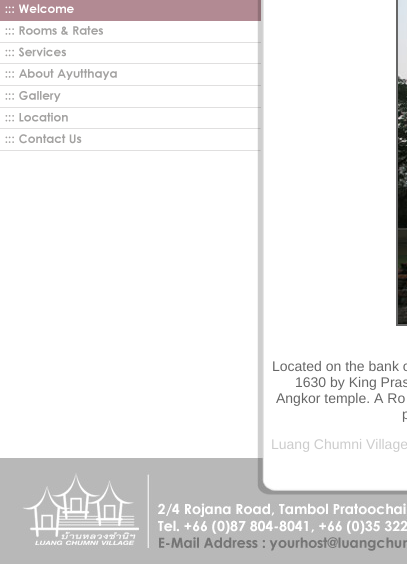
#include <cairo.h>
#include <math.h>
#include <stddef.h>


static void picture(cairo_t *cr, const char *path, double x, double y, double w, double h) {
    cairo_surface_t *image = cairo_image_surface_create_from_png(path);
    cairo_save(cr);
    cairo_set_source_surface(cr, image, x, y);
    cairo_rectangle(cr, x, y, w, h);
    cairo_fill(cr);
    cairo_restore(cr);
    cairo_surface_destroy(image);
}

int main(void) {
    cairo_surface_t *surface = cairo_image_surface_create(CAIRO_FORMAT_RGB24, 407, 564);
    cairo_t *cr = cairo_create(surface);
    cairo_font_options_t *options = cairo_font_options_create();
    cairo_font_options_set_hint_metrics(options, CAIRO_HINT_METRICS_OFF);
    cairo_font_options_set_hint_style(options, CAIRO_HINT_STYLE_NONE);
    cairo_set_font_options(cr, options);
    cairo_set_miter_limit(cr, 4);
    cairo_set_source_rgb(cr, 1, 1, 1);
    cairo_paint(cr);
    picture(cr, "img1.png", 0, 409, 261, 45);
    picture(cr, "img2.png", 0, 21, 261, 388);
    picture(cr, "img3.png", 0, 0, 261, 21);
    picture(cr, "img4.png", 0, 26, 261, 17);
    picture(cr, "img5.png", 0, 47, 261, 17);
    picture(cr, "img6.png", 0, 69, 261, 17);
    picture(cr, "img7.png", 0, 91, 261, 17);
    picture(cr, "img8.png", 0, 112, 261, 17);
    picture(cr, "img9.png", 0, 134, 261, 17);
    picture(cr, "img10.png", 261, 0, 8, 454);
    cairo_rectangle(cr, 397, -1, 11, 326);
    cairo_set_source_rgb(cr, 0.4, 0.4, 0.4);
    cairo_stroke(cr);
    picture(cr, "img11.png", 398, 0, 9, 324);
    cairo_select_font_face(cr, "Liberation Sans", CAIRO_FONT_SLANT_NORMAL, CAIRO_FONT_WEIGHT_NORMAL);
    cairo_set_font_size(cr, 14);
    cairo_move_to(cr, 272, 371);
    cairo_show_text(cr, "Located on the bank o");
    cairo_move_to(cr, 295, 387);
    cairo_show_text(cr, "1630 by King Pras");
    cairo_move_to(cr, 276, 403);
    cairo_show_text(cr, "Angkor temple. A Ro");
    cairo_move_to(cr, 402, 419);
    cairo_show_text(cr, "p");
    cairo_set_source_rgb(cr, 0.8, 0.8, 0.8);
    cairo_move_to(cr, 271, 449);
    cairo_show_text(cr, "Luang Chumni Village");
    picture(cr, "img12.png", 0, 454, 407, 110);
    cairo_surface_write_to_png(surface, "page.png");
    cairo_font_options_destroy(options);
    cairo_destroy(cr);
    cairo_surface_destroy(surface);
    return 0;
}
